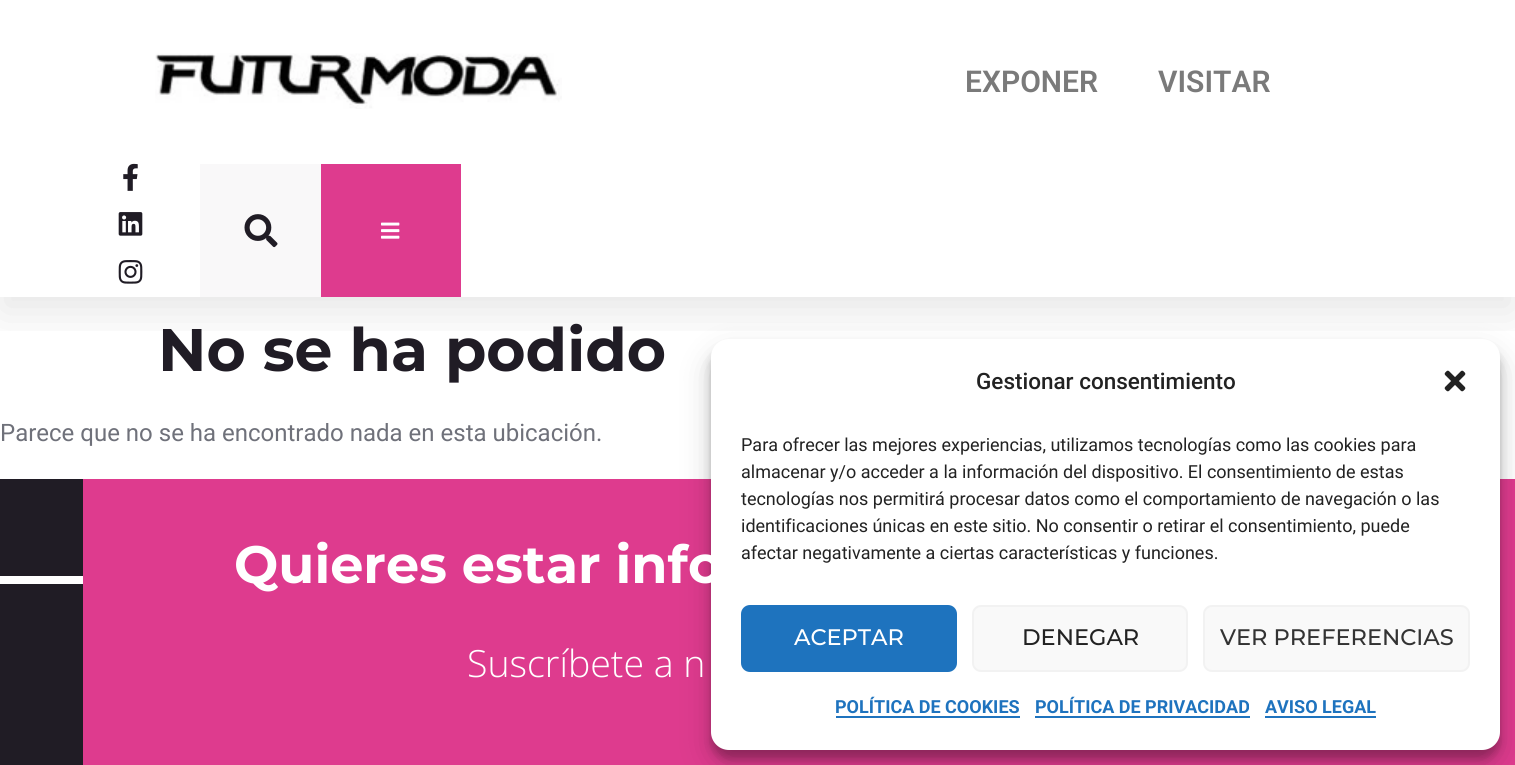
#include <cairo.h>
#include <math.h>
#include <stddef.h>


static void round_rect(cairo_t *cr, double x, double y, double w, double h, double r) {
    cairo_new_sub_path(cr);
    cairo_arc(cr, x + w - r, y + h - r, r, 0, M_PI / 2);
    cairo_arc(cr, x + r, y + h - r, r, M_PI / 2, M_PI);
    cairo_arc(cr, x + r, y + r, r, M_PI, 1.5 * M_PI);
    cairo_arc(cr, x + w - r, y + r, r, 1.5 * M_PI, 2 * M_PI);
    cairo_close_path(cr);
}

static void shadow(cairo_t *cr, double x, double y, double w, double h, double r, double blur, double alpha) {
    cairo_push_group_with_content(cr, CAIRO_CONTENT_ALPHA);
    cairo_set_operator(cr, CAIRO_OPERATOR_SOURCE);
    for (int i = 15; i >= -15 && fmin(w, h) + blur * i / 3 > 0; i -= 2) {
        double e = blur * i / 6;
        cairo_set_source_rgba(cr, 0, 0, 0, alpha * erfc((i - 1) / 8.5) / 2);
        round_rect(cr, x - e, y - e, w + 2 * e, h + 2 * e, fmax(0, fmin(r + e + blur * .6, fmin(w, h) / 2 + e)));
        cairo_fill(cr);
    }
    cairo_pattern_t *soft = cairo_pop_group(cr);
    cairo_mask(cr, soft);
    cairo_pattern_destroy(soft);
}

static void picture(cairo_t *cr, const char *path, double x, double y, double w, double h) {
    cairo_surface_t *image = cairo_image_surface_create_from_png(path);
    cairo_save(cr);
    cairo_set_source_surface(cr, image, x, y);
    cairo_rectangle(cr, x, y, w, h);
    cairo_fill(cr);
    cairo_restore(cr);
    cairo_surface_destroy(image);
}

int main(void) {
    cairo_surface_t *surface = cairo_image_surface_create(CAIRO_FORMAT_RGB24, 1515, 765);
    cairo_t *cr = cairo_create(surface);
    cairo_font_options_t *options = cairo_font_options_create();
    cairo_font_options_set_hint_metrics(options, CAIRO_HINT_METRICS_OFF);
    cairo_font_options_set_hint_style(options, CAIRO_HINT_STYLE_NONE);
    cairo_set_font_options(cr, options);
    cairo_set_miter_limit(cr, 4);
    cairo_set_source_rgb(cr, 1, 1, 1);
    cairo_paint(cr);
    cairo_save(cr);
    cairo_rectangle(cr, 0, 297, 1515, 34);
    cairo_clip(cr);
    cairo_set_source_rgb(cr, 0, 0, 0);
    shadow(cr, 0, 15, 1515, 297, 0, 22.5, 0.1);
    cairo_restore(cr);
    picture(cr, "img1.png", 155, 53, 407, 56);
    cairo_select_font_face(cr, "Roboto SemiBold", CAIRO_FONT_SLANT_NORMAL, CAIRO_FONT_WEIGHT_NORMAL);
    cairo_set_font_size(cr, 30);
    cairo_set_source_rgb(cr, 0.478, 0.478, 0.478);
    cairo_move_to(cr, 965, 92);
    cairo_show_text(cr, "EXPONER");
    cairo_move_to(cr, 1158, 92);
    cairo_show_text(cr, "VISITAR");
    picture(cr, "img2.png", 123, 163, 15, 28);
    picture(cr, "img3.png", 118, 212, 25, 24);
    picture(cr, "img4.png", 118, 260, 25, 24);
    cairo_set_source_rgb(cr, 0.973, 0.969, 0.973);
    cairo_rectangle(cr, 200, 164, 121, 133);
    cairo_fill(cr);
    picture(cr, "img5.png", 244, 214, 34, 34);
    cairo_set_source_rgb(cr, 0.871, 0.231, 0.557);
    cairo_rectangle(cr, 321, 164, 140, 133);
    cairo_fill(cr);
    picture(cr, "img6.png", 381, 222, 19, 17);
    cairo_select_font_face(cr, "Montserrat", CAIRO_FONT_SLANT_NORMAL, CAIRO_FONT_WEIGHT_BOLD);
    cairo_set_font_size(cr, 60);
    cairo_set_source_rgb(cr, 0.125, 0.11, 0.145);
    cairo_move_to(cr, 158, 371);
    cairo_show_text(cr, "No se ha podido");
    cairo_select_font_face(cr, "Roboto", CAIRO_FONT_SLANT_NORMAL, CAIRO_FONT_WEIGHT_NORMAL);
    cairo_set_font_size(cr, 24);
    cairo_set_source_rgb(cr, 0.435, 0.443, 0.478);
    cairo_move_to(cr, 0, 441);
    cairo_show_text(cr, "Parece que no se ha encontrado nada en esta ubicación.");
    cairo_set_source_rgb(cr, 0.871, 0.231, 0.557);
    cairo_rectangle(cr, 83, 479, 1432, 286);
    cairo_fill(cr);
    cairo_set_source_rgb(cr, 0, 0, 0);
    shadow(cr, 711, 348, 789, 411, 18, 4.5, 0.23);
    shadow(cr, 711, 354, 789, 411, 18, 15, 0.19);
    cairo_set_source_rgb(cr, 1, 1, 1);
    round_rect(cr, 711, 339, 789, 411, 18);
    cairo_fill(cr);
    cairo_select_font_face(cr, "Roboto Medium", CAIRO_FONT_SLANT_NORMAL, CAIRO_FONT_WEIGHT_NORMAL);
    cairo_set_font_size(cr, 22.5);
    cairo_set_source_rgb(cr, 0.133, 0.133, 0.133);
    cairo_move_to(cr, 976, 389);
    cairo_show_text(cr, "Gestionar consentimiento");
    picture(cr, "img7.png", 1444, 370, 22, 22);
    cairo_select_font_face(cr, "Roboto", CAIRO_FONT_SLANT_NORMAL, CAIRO_FONT_WEIGHT_NORMAL);
    cairo_set_font_size(cr, 18);
    cairo_move_to(cr, 741, 451);
    cairo_show_text(cr, "Para ofrecer las mejores experiencias, utilizamos tecnologías como las cookies para");
    cairo_move_to(cr, 741, 478);
    cairo_show_text(cr, "almacenar y/o acceder a la información del dispositivo. El consentimiento de estas");
    cairo_move_to(cr, 741, 505);
    cairo_show_text(cr, "tecnologías nos permitirá procesar datos como el comportamiento de navegación o las");
    cairo_move_to(cr, 741, 532);
    cairo_show_text(cr, "identificaciones únicas en este sitio. No consentir o retirar el consentimiento, puede");
    cairo_move_to(cr, 741, 559);
    cairo_show_text(cr, "afectar negativamente a ciertas características y funciones.");
    cairo_set_source_rgb(cr, 0.118, 0.451, 0.745);
    round_rect(cr, 742, 606, 214, 65, 8);
    cairo_fill_preserve(cr);
    cairo_stroke(cr);
    cairo_select_font_face(cr, "Montserrat Medium", CAIRO_FONT_SLANT_NORMAL, CAIRO_FONT_WEIGHT_NORMAL);
    cairo_set_font_size(cr, 22.5);
    cairo_set_source_rgb(cr, 1, 1, 1);
    cairo_move_to(cr, 794, 645);
    cairo_show_text(cr, "ACEPTAR");
    cairo_set_source_rgb(cr, 0.976, 0.976, 0.976);
    round_rect(cr, 973, 606, 214, 65, 8);
    cairo_fill_preserve(cr);
    cairo_set_source_rgb(cr, 0.949, 0.949, 0.949);
    cairo_stroke(cr);
    cairo_set_source_rgb(cr, 0.133, 0.133, 0.133);
    cairo_move_to(cr, 1022, 645);
    cairo_show_text(cr, "DENEGAR");
    cairo_set_source_rgb(cr, 0.976, 0.976, 0.976);
    round_rect(cr, 1204, 606, 265, 65, 8);
    cairo_fill_preserve(cr);
    cairo_set_source_rgb(cr, 0.949, 0.949, 0.949);
    cairo_stroke(cr);
    cairo_set_source_rgb(cr, 0.2, 0.2, 0.2);
    cairo_move_to(cr, 1220, 645);
    cairo_show_text(cr, "VER PREFERENCIAS");
    cairo_select_font_face(cr, "Roboto", CAIRO_FONT_SLANT_NORMAL, CAIRO_FONT_WEIGHT_BOLD);
    cairo_set_font_size(cr, 18);
    cairo_set_source_rgb(cr, 0.118, 0.451, 0.745);
    cairo_move_to(cr, 835, 713);
    cairo_show_text(cr, "POLÍTICA DE COOKIES");
    cairo_rectangle(cr, 836, 716, 184, 2);
    cairo_fill(cr);
    cairo_move_to(cr, 1035, 713);
    cairo_show_text(cr, "POLÍTICA DE PRIVACIDAD");
    cairo_rectangle(cr, 1035, 716, 215, 2);
    cairo_fill(cr);
    cairo_move_to(cr, 1265, 713);
    cairo_show_text(cr, "AVISO LEGAL");
    cairo_rectangle(cr, 1265, 716, 111, 2);
    cairo_fill(cr);
    cairo_set_source_rgb(cr, 0.125, 0.11, 0.145);
    cairo_rectangle(cr, 0, 479, 83, 286);
    cairo_fill(cr);
    cairo_set_source_rgb(cr, 1, 1, 1);
    cairo_rectangle(cr, 0, 576, 83, 8);
    cairo_fill(cr);
    cairo_select_font_face(cr, "Montserrat", CAIRO_FONT_SLANT_NORMAL, CAIRO_FONT_WEIGHT_BOLD);
    cairo_set_font_size(cr, 52.5);
    cairo_move_to(cr, 234, 583);
    cairo_show_text(cr, "Quieres estar info");
    cairo_select_font_face(cr, "Open Sans Light", CAIRO_FONT_SLANT_NORMAL, CAIRO_FONT_WEIGHT_NORMAL);
    cairo_set_font_size(cr, 37.5);
    cairo_move_to(cr, 467, 677);
    cairo_show_text(cr, "Suscríbete a n");
    cairo_surface_write_to_png(surface, "page.png");
    cairo_font_options_destroy(options);
    cairo_destroy(cr);
    cairo_surface_destroy(surface);
    return 0;
}
